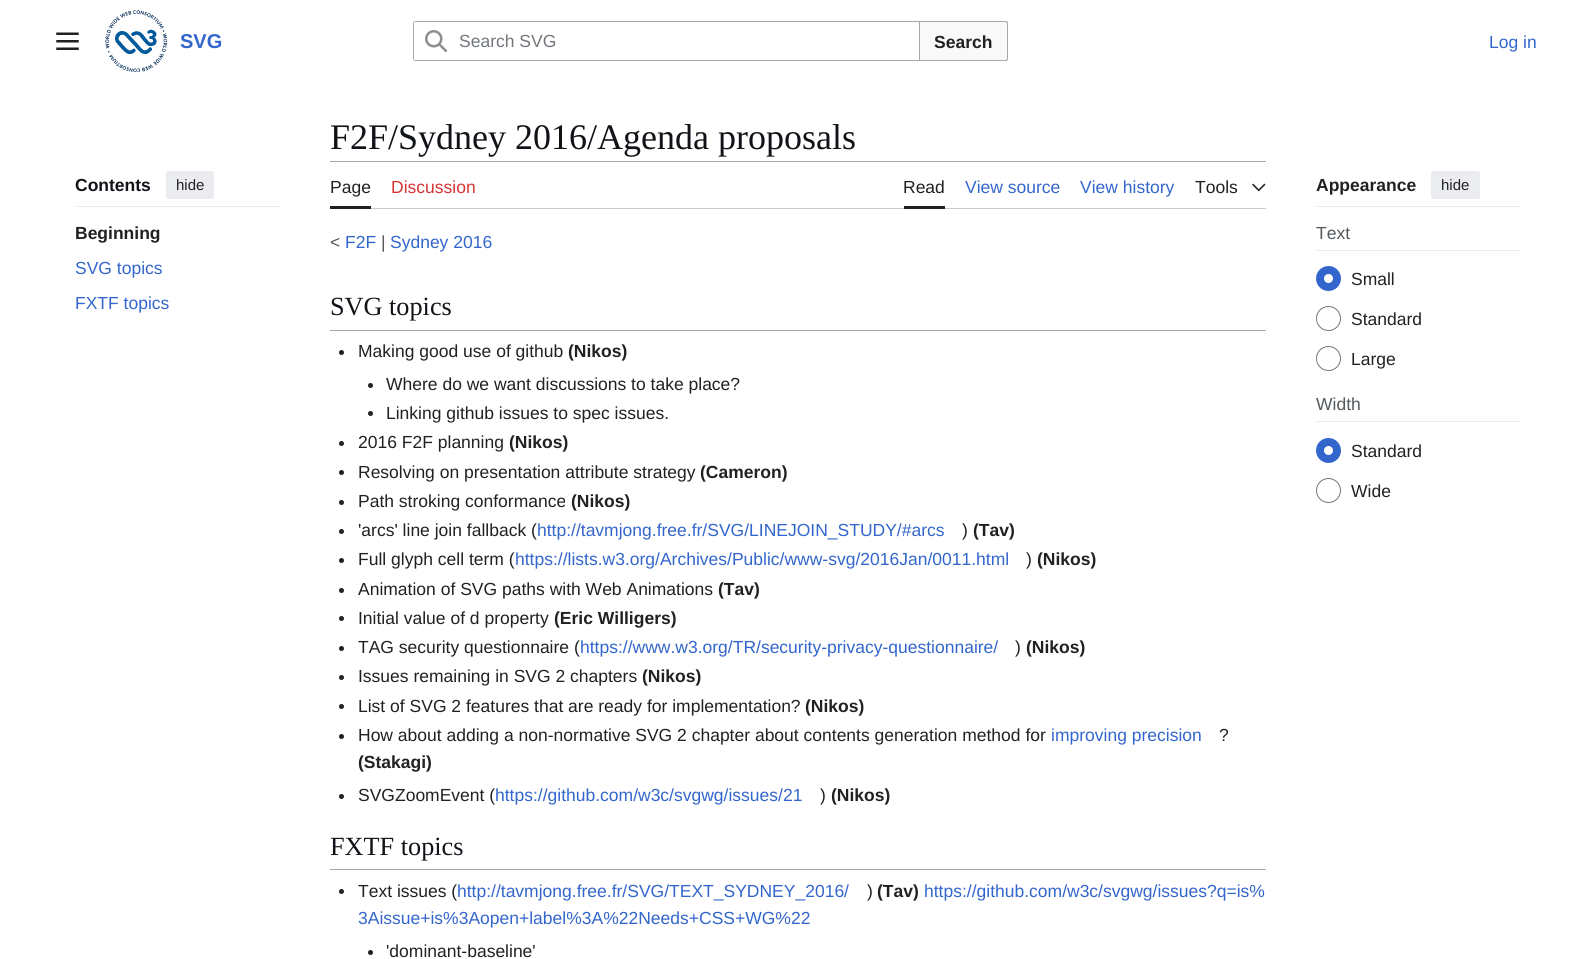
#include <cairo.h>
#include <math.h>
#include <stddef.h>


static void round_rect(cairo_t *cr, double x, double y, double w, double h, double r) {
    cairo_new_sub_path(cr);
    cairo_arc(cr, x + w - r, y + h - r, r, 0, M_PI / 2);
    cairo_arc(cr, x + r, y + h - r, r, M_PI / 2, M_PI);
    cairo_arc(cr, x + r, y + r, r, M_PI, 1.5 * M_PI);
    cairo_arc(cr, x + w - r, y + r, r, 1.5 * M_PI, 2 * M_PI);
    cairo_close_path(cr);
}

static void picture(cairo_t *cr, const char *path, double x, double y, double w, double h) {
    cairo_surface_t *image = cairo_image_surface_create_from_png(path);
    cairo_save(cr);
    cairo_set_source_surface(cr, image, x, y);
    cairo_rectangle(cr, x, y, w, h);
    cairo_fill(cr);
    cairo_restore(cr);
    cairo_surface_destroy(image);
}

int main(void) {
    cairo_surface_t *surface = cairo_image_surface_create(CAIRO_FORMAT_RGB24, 1596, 959);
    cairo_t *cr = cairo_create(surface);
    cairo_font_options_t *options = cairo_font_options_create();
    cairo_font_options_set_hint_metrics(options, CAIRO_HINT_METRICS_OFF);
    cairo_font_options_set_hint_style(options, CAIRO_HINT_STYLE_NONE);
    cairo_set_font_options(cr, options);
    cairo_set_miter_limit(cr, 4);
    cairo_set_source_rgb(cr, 1, 1, 1);
    cairo_paint(cr);
    picture(cr, "img1.png", 56, 32, 23, 18);
    picture(cr, "img2.png", 105, 10, 63, 63);
    cairo_select_font_face(cr, "Liberation Sans", CAIRO_FONT_SLANT_NORMAL, CAIRO_FONT_WEIGHT_BOLD);
    cairo_set_font_size(cr, 20);
    cairo_set_source_rgb(cr, 0.2, 0.4, 0.8);
    cairo_move_to(cr, 180, 48);
    cairo_show_text(cr, "SVG");
    round_rect(cr, 413.5, 21.5, 594, 39, 2);
    cairo_set_source_rgb(cr, 0.635, 0.663, 0.694);
    cairo_set_line_width(cr, 1);
    cairo_stroke(cr);
    cairo_set_source_rgb(cr, 0.973, 0.976, 0.98);
    cairo_new_path(cr);
    cairo_move_to(cr, 919.5, 21.5);
    cairo_line_to(cr, 1005.5, 21.5);
    cairo_curve_to(cr, 1006.5, 21.5, 1007.5, 22.5, 1007.5, 23.5);
    cairo_line_to(cr, 1007.5, 58.5);
    cairo_curve_to(cr, 1007.5, 59.5, 1006.5, 60.5, 1005.5, 60.5);
    cairo_line_to(cr, 919.5, 60.5);
    cairo_close_path(cr);
    cairo_fill_preserve(cr);
    cairo_set_source_rgb(cr, 0.635, 0.663, 0.694);
    cairo_stroke(cr);
    cairo_set_source_rgb(cr, 1, 1, 1);
    cairo_new_path(cr);
    cairo_move_to(cr, 415.5, 21);
    cairo_line_to(cr, 920, 21);
    cairo_line_to(cr, 920, 61);
    cairo_line_to(cr, 415.5, 61);
    cairo_curve_to(cr, 414, 61, 413, 60, 413, 58.5);
    cairo_line_to(cr, 413, 23.5);
    cairo_curve_to(cr, 413, 22, 414, 21, 415.5, 21);
    cairo_close_path(cr);
    cairo_fill(cr);
    cairo_set_source_rgb(cr, 0.635, 0.663, 0.694);
    cairo_set_fill_rule(cr, CAIRO_FILL_RULE_EVEN_ODD);
    cairo_new_path(cr);
    cairo_move_to(cr, 416, 21);
    cairo_curve_to(cr, 414, 21, 413, 22, 413, 24);
    cairo_line_to(cr, 413, 58);
    cairo_curve_to(cr, 413, 60, 414, 61, 416, 61);
    cairo_line_to(cr, 920, 61);
    cairo_line_to(cr, 920, 21);
    cairo_close_path(cr);
    cairo_move_to(cr, 414, 22);
    cairo_line_to(cr, 414, 60);
    cairo_line_to(cr, 919, 60);
    cairo_line_to(cr, 919, 22);
    cairo_close_path(cr);
    cairo_fill(cr);
    picture(cr, "img3.png", 425, 30, 23, 23);
    cairo_select_font_face(cr, "Liberation Sans", CAIRO_FONT_SLANT_NORMAL, CAIRO_FONT_WEIGHT_NORMAL);
    cairo_set_font_size(cr, 17.5);
    cairo_set_source_rgb(cr, 0.447, 0.467, 0.49);
    cairo_move_to(cr, 459, 47);
    cairo_show_text(cr, "Search SVG");
    cairo_select_font_face(cr, "Liberation Sans", CAIRO_FONT_SLANT_NORMAL, CAIRO_FONT_WEIGHT_BOLD);
    cairo_set_source_rgb(cr, 0.125, 0.129, 0.133);
    cairo_move_to(cr, 934, 48);
    cairo_show_text(cr, "Search");
    cairo_select_font_face(cr, "Liberation Sans", CAIRO_FONT_SLANT_NORMAL, CAIRO_FONT_WEIGHT_NORMAL);
    cairo_set_source_rgb(cr, 0.2, 0.4, 0.8);
    cairo_move_to(cr, 1489, 48);
    cairo_show_text(cr, "Log in");
    cairo_set_source_rgb(cr, 0.918, 0.925, 0.941);
    cairo_rectangle(cr, 75, 206, 205, 1);
    cairo_fill(cr);
    cairo_select_font_face(cr, "Liberation Sans", CAIRO_FONT_SLANT_NORMAL, CAIRO_FONT_WEIGHT_BOLD);
    cairo_set_source_rgb(cr, 0.063, 0.078, 0.094);
    cairo_move_to(cr, 75, 191);
    cairo_show_text(cr, "Contents");
    cairo_set_source_rgb(cr, 0.918, 0.925, 0.941);
    round_rect(cr, 166, 171, 48, 28, 2.5);
    cairo_fill(cr);
    cairo_select_font_face(cr, "Liberation Sans", CAIRO_FONT_SLANT_NORMAL, CAIRO_FONT_WEIGHT_NORMAL);
    cairo_set_font_size(cr, 15);
    cairo_set_source_rgb(cr, 0.125, 0.129, 0.133);
    cairo_move_to(cr, 176, 190);
    cairo_show_text(cr, "hide");
    cairo_select_font_face(cr, "Liberation Sans", CAIRO_FONT_SLANT_NORMAL, CAIRO_FONT_WEIGHT_BOLD);
    cairo_set_font_size(cr, 17.5);
    cairo_move_to(cr, 75, 239);
    cairo_show_text(cr, "Beginning");
    cairo_select_font_face(cr, "Liberation Sans", CAIRO_FONT_SLANT_NORMAL, CAIRO_FONT_WEIGHT_NORMAL);
    cairo_set_source_rgb(cr, 0.2, 0.4, 0.8);
    cairo_move_to(cr, 75, 274);
    cairo_show_text(cr, "SVG topics");
    cairo_move_to(cr, 75, 309);
    cairo_show_text(cr, "FXTF topics");
    cairo_select_font_face(cr, "Liberation Serif", CAIRO_FONT_SLANT_NORMAL, CAIRO_FONT_WEIGHT_NORMAL);
    cairo_set_font_size(cr, 36);
    cairo_set_source_rgb(cr, 0.063, 0.078, 0.094);
    cairo_move_to(cr, 330, 149);
    cairo_show_text(cr, "F2F/Sydney 2016/Agenda proposals");
    cairo_set_source_rgb(cr, 0.635, 0.663, 0.694);
    cairo_rectangle(cr, 330, 161, 936, 1);
    cairo_fill(cr);
    cairo_set_source_rgb(cr, 0.784, 0.8, 0.82);
    cairo_rectangle(cr, 371, 208, 895, 1);
    cairo_fill(cr);
    cairo_set_source_rgb(cr, 0.125, 0.129, 0.133);
    cairo_rectangle(cr, 330, 206, 41, 3);
    cairo_fill(cr);
    cairo_select_font_face(cr, "Liberation Sans", CAIRO_FONT_SLANT_NORMAL, CAIRO_FONT_WEIGHT_NORMAL);
    cairo_set_font_size(cr, 17.5);
    cairo_move_to(cr, 330, 193);
    cairo_show_text(cr, "Page");
    cairo_set_source_rgb(cr, 0.843, 0.2, 0.2);
    cairo_move_to(cr, 391, 193);
    cairo_show_text(cr, "Discussion");
    cairo_set_source_rgb(cr, 0.125, 0.129, 0.133);
    cairo_rectangle(cr, 904, 206, 41, 3);
    cairo_fill(cr);
    cairo_move_to(cr, 903, 193);
    cairo_show_text(cr, "Read");
    cairo_set_source_rgb(cr, 0.2, 0.4, 0.8);
    cairo_move_to(cr, 965, 193);
    cairo_show_text(cr, "View source");
    cairo_move_to(cr, 1080, 193);
    cairo_show_text(cr, "View history");
    cairo_set_source_rgb(cr, 0.125, 0.129, 0.133);
    cairo_move_to(cr, 1195, 193);
    cairo_show_text(cr, "Tools");
    picture(cr, "img4.png", 1252, 183, 14, 9);
    cairo_set_source_rgb(cr, 0.918, 0.925, 0.941);
    cairo_rectangle(cr, 1316, 206, 205, 1);
    cairo_fill(cr);
    cairo_select_font_face(cr, "Liberation Sans", CAIRO_FONT_SLANT_NORMAL, CAIRO_FONT_WEIGHT_BOLD);
    cairo_set_source_rgb(cr, 0.125, 0.129, 0.133);
    cairo_move_to(cr, 1316, 191);
    cairo_show_text(cr, "Appearance");
    cairo_set_source_rgb(cr, 0.918, 0.925, 0.941);
    round_rect(cr, 1431, 171, 49, 28, 2.5);
    cairo_fill(cr);
    cairo_select_font_face(cr, "Liberation Sans", CAIRO_FONT_SLANT_NORMAL, CAIRO_FONT_WEIGHT_NORMAL);
    cairo_set_font_size(cr, 15);
    cairo_set_source_rgb(cr, 0.125, 0.129, 0.133);
    cairo_move_to(cr, 1441, 190);
    cairo_show_text(cr, "hide");
    cairo_set_source_rgb(cr, 0.918, 0.925, 0.941);
    cairo_rectangle(cr, 1316, 250, 205, 1);
    cairo_fill(cr);
    cairo_set_font_size(cr, 17.5);
    cairo_set_source_rgb(cr, 0.329, 0.349, 0.365);
    cairo_move_to(cr, 1316, 239);
    cairo_show_text(cr, "Text");
    cairo_new_path(cr);
    cairo_arc(cr, 1328.5, 278.5, 8.5, 0, 2 * M_PI);
    cairo_set_source_rgb(cr, 0.2, 0.4, 0.8);
    cairo_set_line_width(cr, 8);
    cairo_stroke(cr);
    cairo_set_source_rgb(cr, 0.125, 0.129, 0.133);
    cairo_move_to(cr, 1351, 285);
    cairo_show_text(cr, "Small");
    cairo_new_path(cr);
    cairo_arc(cr, 1328.5, 318.5, 12, 0, 2 * M_PI);
    cairo_set_source_rgb(cr, 0.447, 0.467, 0.49);
    cairo_set_line_width(cr, 1);
    cairo_stroke(cr);
    cairo_set_source_rgb(cr, 0.125, 0.129, 0.133);
    cairo_move_to(cr, 1351, 325);
    cairo_show_text(cr, "Standard");
    cairo_new_path(cr);
    cairo_arc(cr, 1328.5, 358.5, 12, 0, 2 * M_PI);
    cairo_set_source_rgb(cr, 0.447, 0.467, 0.49);
    cairo_stroke(cr);
    cairo_set_source_rgb(cr, 0.125, 0.129, 0.133);
    cairo_move_to(cr, 1351, 365);
    cairo_show_text(cr, "Large");
    cairo_set_source_rgb(cr, 0.918, 0.925, 0.941);
    cairo_rectangle(cr, 1316, 421, 205, 1);
    cairo_fill(cr);
    cairo_set_source_rgb(cr, 0.329, 0.349, 0.365);
    cairo_move_to(cr, 1316, 410);
    cairo_show_text(cr, "Width");
    cairo_new_path(cr);
    cairo_arc(cr, 1328.5, 450.5, 8.5, 0, 2 * M_PI);
    cairo_set_source_rgb(cr, 0.2, 0.4, 0.8);
    cairo_set_line_width(cr, 8);
    cairo_stroke(cr);
    cairo_set_source_rgb(cr, 0.125, 0.129, 0.133);
    cairo_move_to(cr, 1351, 457);
    cairo_show_text(cr, "Standard");
    cairo_new_path(cr);
    cairo_arc(cr, 1328.5, 490.5, 12, 0, 2 * M_PI);
    cairo_set_source_rgb(cr, 0.447, 0.467, 0.49);
    cairo_set_line_width(cr, 1);
    cairo_stroke(cr);
    cairo_set_source_rgb(cr, 0.125, 0.129, 0.133);
    cairo_move_to(cr, 1351, 497);
    cairo_show_text(cr, "Wide");
    cairo_set_source_rgb(cr, 0.329, 0.349, 0.365);
    cairo_move_to(cr, 330, 248);
    cairo_show_text(cr, "<");
    cairo_set_source_rgb(cr, 0.2, 0.4, 0.8);
    cairo_move_to(cr, 345, 248);
    cairo_show_text(cr, "F2F");
    cairo_set_source_rgb(cr, 0.329, 0.349, 0.365);
    cairo_move_to(cr, 381, 248);
    cairo_show_text(cr, "|");
    cairo_set_source_rgb(cr, 0.2, 0.4, 0.8);
    cairo_move_to(cr, 390, 248);
    cairo_show_text(cr, "Sydney 2016");
    cairo_set_source_rgb(cr, 0.635, 0.663, 0.694);
    cairo_rectangle(cr, 330, 330, 936, 1);
    cairo_fill(cr);
    cairo_select_font_face(cr, "Liberation Serif", CAIRO_FONT_SLANT_NORMAL, CAIRO_FONT_WEIGHT_NORMAL);
    cairo_set_font_size(cr, 26.25);
    cairo_set_source_rgb(cr, 0.063, 0.078, 0.094);
    cairo_move_to(cr, 330, 315);
    cairo_show_text(cr, "SVG topics");
    cairo_set_source_rgb(cr, 0.125, 0.129, 0.133);
    cairo_new_path(cr);
    cairo_arc(cr, 341.5, 352.5, 2.5, 0, 2 * M_PI);
    cairo_fill(cr);
    cairo_select_font_face(cr, "Liberation Sans", CAIRO_FONT_SLANT_NORMAL, CAIRO_FONT_WEIGHT_NORMAL);
    cairo_set_font_size(cr, 17.5);
    cairo_move_to(cr, 358, 357);
    cairo_show_text(cr, "Making good use of github");
    cairo_select_font_face(cr, "Liberation Sans", CAIRO_FONT_SLANT_NORMAL, CAIRO_FONT_WEIGHT_BOLD);
    cairo_move_to(cr, 568, 357);
    cairo_show_text(cr, "(Nikos)");
    cairo_new_path(cr);
    cairo_arc(cr, 370.5, 385.5, 2.5, 0, 2 * M_PI);
    cairo_fill(cr);
    cairo_select_font_face(cr, "Liberation Sans", CAIRO_FONT_SLANT_NORMAL, CAIRO_FONT_WEIGHT_NORMAL);
    cairo_move_to(cr, 386, 390);
    cairo_show_text(cr, "Where do we want discussions to take place?");
    cairo_new_path(cr);
    cairo_arc(cr, 370.5, 413.5, 2.5, 0, 2 * M_PI);
    cairo_fill(cr);
    cairo_move_to(cr, 386, 419);
    cairo_show_text(cr, "Linking github issues to spec issues.");
    cairo_new_path(cr);
    cairo_arc(cr, 341.5, 443.5, 2.5, 0, 2 * M_PI);
    cairo_fill(cr);
    cairo_move_to(cr, 358, 448);
    cairo_show_text(cr, "2016 F2F planning");
    cairo_select_font_face(cr, "Liberation Sans", CAIRO_FONT_SLANT_NORMAL, CAIRO_FONT_WEIGHT_BOLD);
    cairo_move_to(cr, 509, 448);
    cairo_show_text(cr, "(Nikos)");
    cairo_new_path(cr);
    cairo_arc(cr, 341.5, 472.5, 2.5, 0, 2 * M_PI);
    cairo_fill(cr);
    cairo_select_font_face(cr, "Liberation Sans", CAIRO_FONT_SLANT_NORMAL, CAIRO_FONT_WEIGHT_NORMAL);
    cairo_move_to(cr, 358, 478);
    cairo_show_text(cr, "Resolving on presentation attribute strategy");
    cairo_select_font_face(cr, "Liberation Sans", CAIRO_FONT_SLANT_NORMAL, CAIRO_FONT_WEIGHT_BOLD);
    cairo_move_to(cr, 700, 478);
    cairo_show_text(cr, "(Cameron)");
    cairo_new_path(cr);
    cairo_arc(cr, 341.5, 502.5, 2.5, 0, 2 * M_PI);
    cairo_fill(cr);
    cairo_select_font_face(cr, "Liberation Sans", CAIRO_FONT_SLANT_NORMAL, CAIRO_FONT_WEIGHT_NORMAL);
    cairo_move_to(cr, 358, 507);
    cairo_show_text(cr, "Path stroking conformance");
    cairo_select_font_face(cr, "Liberation Sans", CAIRO_FONT_SLANT_NORMAL, CAIRO_FONT_WEIGHT_BOLD);
    cairo_move_to(cr, 571, 507);
    cairo_show_text(cr, "(Nikos)");
    cairo_new_path(cr);
    cairo_arc(cr, 341.5, 531.5, 2.5, 0, 2 * M_PI);
    cairo_fill(cr);
    cairo_select_font_face(cr, "Liberation Sans", CAIRO_FONT_SLANT_NORMAL, CAIRO_FONT_WEIGHT_NORMAL);
    cairo_move_to(cr, 358, 536);
    cairo_show_text(cr, "'arcs' line join fallback (");
    cairo_set_source_rgb(cr, 0.2, 0.4, 0.8);
    cairo_move_to(cr, 537, 536);
    cairo_show_text(cr, "http://tavmjong.free.fr/SVG/LINEJOIN_STUDY/#arcs");
    cairo_set_source_rgb(cr, 0.125, 0.129, 0.133);
    cairo_move_to(cr, 962, 536);
    cairo_show_text(cr, ")");
    cairo_select_font_face(cr, "Liberation Sans", CAIRO_FONT_SLANT_NORMAL, CAIRO_FONT_WEIGHT_BOLD);
    cairo_move_to(cr, 973, 536);
    cairo_show_text(cr, "(Tav)");
    cairo_new_path(cr);
    cairo_arc(cr, 341.5, 560.5, 2.5, 0, 2 * M_PI);
    cairo_fill(cr);
    cairo_select_font_face(cr, "Liberation Sans", CAIRO_FONT_SLANT_NORMAL, CAIRO_FONT_WEIGHT_NORMAL);
    cairo_move_to(cr, 358, 565);
    cairo_show_text(cr, "Full glyph cell term (");
    cairo_set_source_rgb(cr, 0.2, 0.4, 0.8);
    cairo_move_to(cr, 515, 565);
    cairo_show_text(cr, "https://lists.w3.org/Archives/Public/www-svg/2016Jan/0011.html");
    cairo_set_source_rgb(cr, 0.125, 0.129, 0.133);
    cairo_move_to(cr, 1026, 565);
    cairo_show_text(cr, ")");
    cairo_select_font_face(cr, "Liberation Sans", CAIRO_FONT_SLANT_NORMAL, CAIRO_FONT_WEIGHT_BOLD);
    cairo_move_to(cr, 1037, 565);
    cairo_show_text(cr, "(Nikos)");
    cairo_new_path(cr);
    cairo_arc(cr, 341.5, 590.5, 2.5, 0, 2 * M_PI);
    cairo_fill(cr);
    cairo_select_font_face(cr, "Liberation Sans", CAIRO_FONT_SLANT_NORMAL, CAIRO_FONT_WEIGHT_NORMAL);
    cairo_move_to(cr, 358, 595);
    cairo_show_text(cr, "Animation of SVG paths with Web Animations");
    cairo_select_font_face(cr, "Liberation Sans", CAIRO_FONT_SLANT_NORMAL, CAIRO_FONT_WEIGHT_BOLD);
    cairo_move_to(cr, 718, 595);
    cairo_show_text(cr, "(Tav)");
    cairo_new_path(cr);
    cairo_arc(cr, 341.5, 618.5, 2.5, 0, 2 * M_PI);
    cairo_fill(cr);
    cairo_select_font_face(cr, "Liberation Sans", CAIRO_FONT_SLANT_NORMAL, CAIRO_FONT_WEIGHT_NORMAL);
    cairo_move_to(cr, 358, 624);
    cairo_show_text(cr, "Initial value of d property");
    cairo_select_font_face(cr, "Liberation Sans", CAIRO_FONT_SLANT_NORMAL, CAIRO_FONT_WEIGHT_BOLD);
    cairo_move_to(cr, 554, 624);
    cairo_show_text(cr, "(Eric Willigers)");
    cairo_new_path(cr);
    cairo_arc(cr, 341.5, 648.5, 2.5, 0, 2 * M_PI);
    cairo_fill(cr);
    cairo_select_font_face(cr, "Liberation Sans", CAIRO_FONT_SLANT_NORMAL, CAIRO_FONT_WEIGHT_NORMAL);
    cairo_move_to(cr, 358, 653);
    cairo_show_text(cr, "TAG security questionnaire (");
    cairo_set_source_rgb(cr, 0.2, 0.4, 0.8);
    cairo_move_to(cr, 580, 653);
    cairo_show_text(cr, "https://www.w3.org/TR/security-privacy-questionnaire/");
    cairo_set_source_rgb(cr, 0.125, 0.129, 0.133);
    cairo_move_to(cr, 1015, 653);
    cairo_show_text(cr, ")");
    cairo_select_font_face(cr, "Liberation Sans", CAIRO_FONT_SLANT_NORMAL, CAIRO_FONT_WEIGHT_BOLD);
    cairo_move_to(cr, 1026, 653);
    cairo_show_text(cr, "(Nikos)");
    cairo_new_path(cr);
    cairo_arc(cr, 341.5, 677.5, 2.5, 0, 2 * M_PI);
    cairo_fill(cr);
    cairo_select_font_face(cr, "Liberation Sans", CAIRO_FONT_SLANT_NORMAL, CAIRO_FONT_WEIGHT_NORMAL);
    cairo_move_to(cr, 358, 682);
    cairo_show_text(cr, "Issues remaining in SVG 2 chapters");
    cairo_select_font_face(cr, "Liberation Sans", CAIRO_FONT_SLANT_NORMAL, CAIRO_FONT_WEIGHT_BOLD);
    cairo_move_to(cr, 642, 682);
    cairo_show_text(cr, "(Nikos)");
    cairo_new_path(cr);
    cairo_arc(cr, 341.5, 706.5, 2.5, 0, 2 * M_PI);
    cairo_fill(cr);
    cairo_select_font_face(cr, "Liberation Sans", CAIRO_FONT_SLANT_NORMAL, CAIRO_FONT_WEIGHT_NORMAL);
    cairo_move_to(cr, 358, 712);
    cairo_show_text(cr, "List of SVG 2 features that are ready for implementation?");
    cairo_select_font_face(cr, "Liberation Sans", CAIRO_FONT_SLANT_NORMAL, CAIRO_FONT_WEIGHT_BOLD);
    cairo_move_to(cr, 805, 712);
    cairo_show_text(cr, "(Nikos)");
    cairo_new_path(cr);
    cairo_arc(cr, 341.5, 736.5, 2.5, 0, 2 * M_PI);
    cairo_fill(cr);
    cairo_select_font_face(cr, "Liberation Sans", CAIRO_FONT_SLANT_NORMAL, CAIRO_FONT_WEIGHT_NORMAL);
    cairo_move_to(cr, 358, 741);
    cairo_show_text(cr, "How about adding a non-normative SVG 2 chapter about contents generation method for");
    cairo_set_source_rgb(cr, 0.2, 0.4, 0.8);
    cairo_move_to(cr, 1051, 741);
    cairo_show_text(cr, "improving precision");
    cairo_set_source_rgb(cr, 0.125, 0.129, 0.133);
    cairo_move_to(cr, 1219, 741);
    cairo_show_text(cr, "?");
    cairo_select_font_face(cr, "Liberation Sans", CAIRO_FONT_SLANT_NORMAL, CAIRO_FONT_WEIGHT_BOLD);
    cairo_move_to(cr, 358, 768);
    cairo_show_text(cr, "(Stakagi)");
    cairo_new_path(cr);
    cairo_arc(cr, 341.5, 796.5, 2.5, 0, 2 * M_PI);
    cairo_fill(cr);
    cairo_select_font_face(cr, "Liberation Sans", CAIRO_FONT_SLANT_NORMAL, CAIRO_FONT_WEIGHT_NORMAL);
    cairo_move_to(cr, 358, 801);
    cairo_show_text(cr, "SVGZoomEvent (");
    cairo_set_source_rgb(cr, 0.2, 0.4, 0.8);
    cairo_move_to(cr, 495, 801);
    cairo_show_text(cr, "https://github.com/w3c/svgwg/issues/21");
    cairo_set_source_rgb(cr, 0.125, 0.129, 0.133);
    cairo_move_to(cr, 820, 801);
    cairo_show_text(cr, ")");
    cairo_select_font_face(cr, "Liberation Sans", CAIRO_FONT_SLANT_NORMAL, CAIRO_FONT_WEIGHT_BOLD);
    cairo_move_to(cr, 831, 801);
    cairo_show_text(cr, "(Nikos)");
    cairo_set_source_rgb(cr, 0.635, 0.663, 0.694);
    cairo_rectangle(cr, 330, 869, 936, 1);
    cairo_fill(cr);
    cairo_select_font_face(cr, "Liberation Serif", CAIRO_FONT_SLANT_NORMAL, CAIRO_FONT_WEIGHT_NORMAL);
    cairo_set_font_size(cr, 26.25);
    cairo_set_source_rgb(cr, 0.063, 0.078, 0.094);
    cairo_move_to(cr, 330, 855);
    cairo_show_text(cr, "FXTF topics");
    cairo_set_source_rgb(cr, 0.125, 0.129, 0.133);
    cairo_new_path(cr);
    cairo_arc(cr, 341.5, 891.5, 2.5, 0, 2 * M_PI);
    cairo_fill(cr);
    cairo_select_font_face(cr, "Liberation Sans", CAIRO_FONT_SLANT_NORMAL, CAIRO_FONT_WEIGHT_NORMAL);
    cairo_set_font_size(cr, 17.5);
    cairo_move_to(cr, 358, 897);
    cairo_show_text(cr, "Text issues (");
    cairo_set_source_rgb(cr, 0.2, 0.4, 0.8);
    cairo_move_to(cr, 457, 897);
    cairo_show_text(cr, "http://tavmjong.free.fr/SVG/TEXT_SYDNEY_2016/");
    cairo_set_source_rgb(cr, 0.125, 0.129, 0.133);
    cairo_move_to(cr, 867, 897);
    cairo_show_text(cr, ")");
    cairo_select_font_face(cr, "Liberation Sans", CAIRO_FONT_SLANT_NORMAL, CAIRO_FONT_WEIGHT_BOLD);
    cairo_move_to(cr, 877, 897);
    cairo_show_text(cr, "(Tav)");
    cairo_select_font_face(cr, "Liberation Sans", CAIRO_FONT_SLANT_NORMAL, CAIRO_FONT_WEIGHT_NORMAL);
    cairo_set_source_rgb(cr, 0.2, 0.4, 0.8);
    cairo_move_to(cr, 924, 897);
    cairo_show_text(cr, "https://github.com/w3c/svgwg/issues?q=is%");
    cairo_move_to(cr, 358, 924);
    cairo_show_text(cr, "3Aissue+is%3Aopen+label%3A%22Needs+CSS+WG%22");
    cairo_set_source_rgb(cr, 0.125, 0.129, 0.133);
    cairo_new_path(cr);
    cairo_arc(cr, 370.5, 952.5, 2.5, 0, 2 * M_PI);
    cairo_fill(cr);
    cairo_move_to(cr, 386, 957);
    cairo_show_text(cr, "'dominant-baseline'");
    cairo_surface_write_to_png(surface, "page.png");
    cairo_font_options_destroy(options);
    cairo_destroy(cr);
    cairo_surface_destroy(surface);
    return 0;
}
